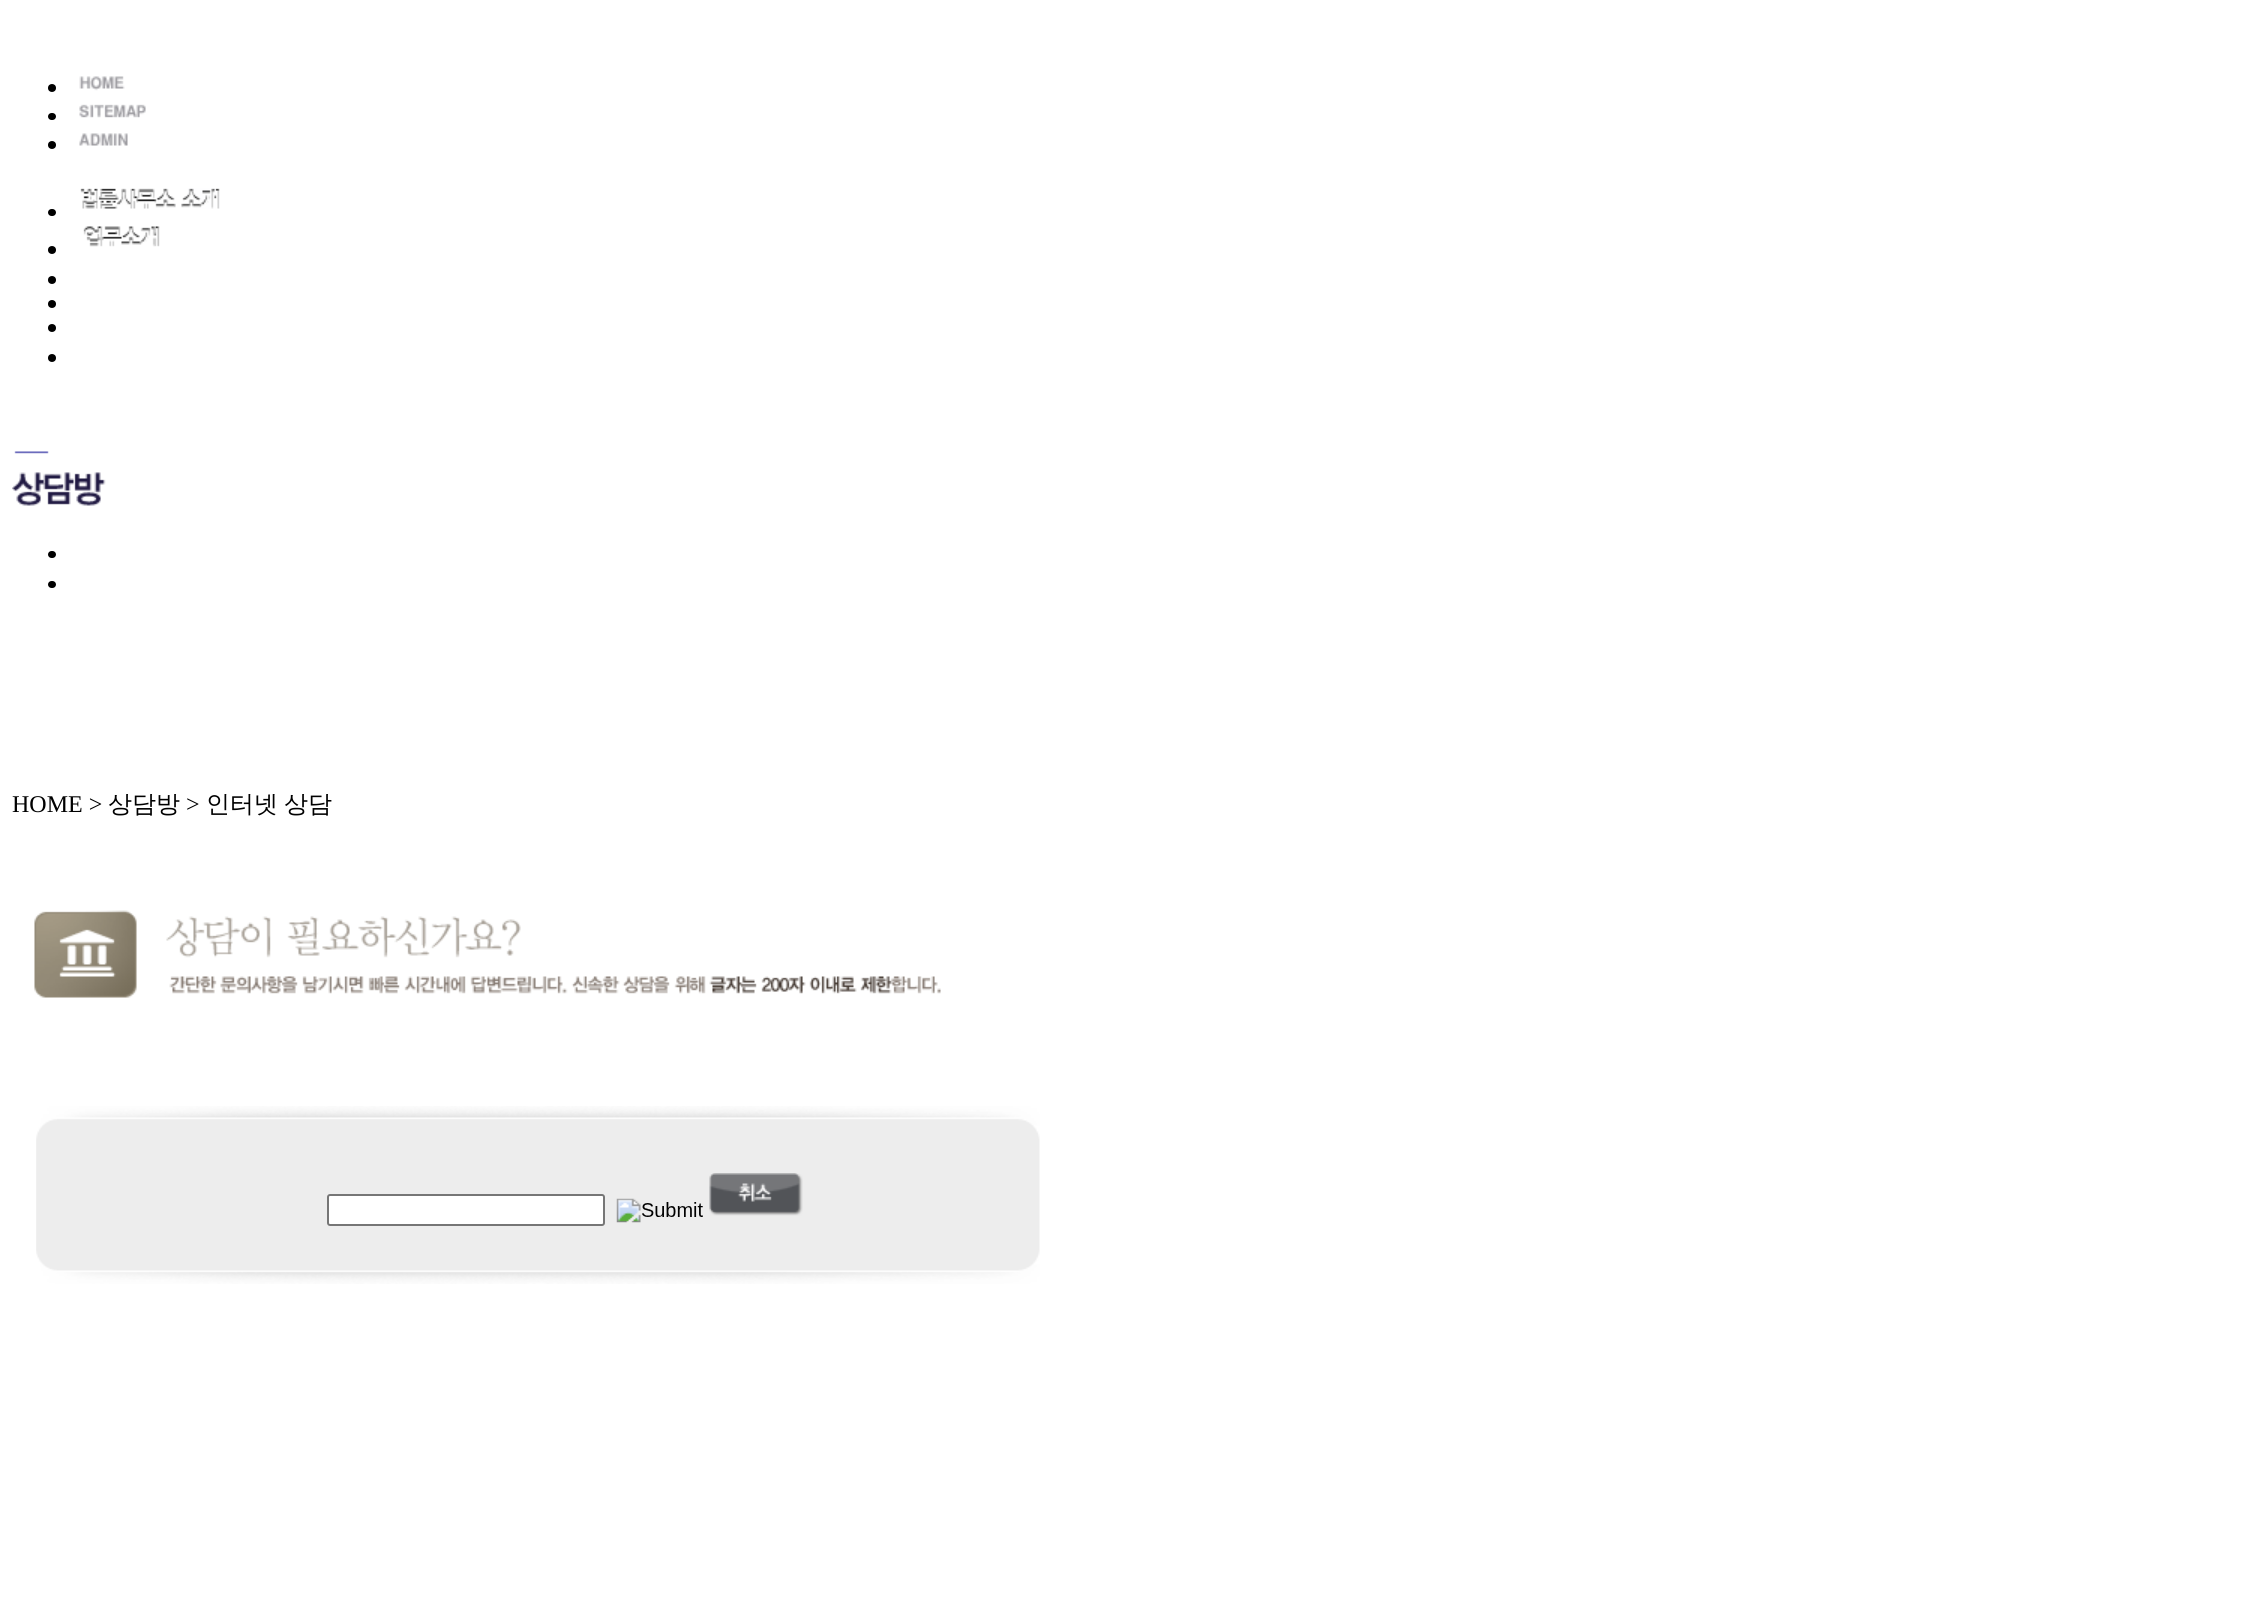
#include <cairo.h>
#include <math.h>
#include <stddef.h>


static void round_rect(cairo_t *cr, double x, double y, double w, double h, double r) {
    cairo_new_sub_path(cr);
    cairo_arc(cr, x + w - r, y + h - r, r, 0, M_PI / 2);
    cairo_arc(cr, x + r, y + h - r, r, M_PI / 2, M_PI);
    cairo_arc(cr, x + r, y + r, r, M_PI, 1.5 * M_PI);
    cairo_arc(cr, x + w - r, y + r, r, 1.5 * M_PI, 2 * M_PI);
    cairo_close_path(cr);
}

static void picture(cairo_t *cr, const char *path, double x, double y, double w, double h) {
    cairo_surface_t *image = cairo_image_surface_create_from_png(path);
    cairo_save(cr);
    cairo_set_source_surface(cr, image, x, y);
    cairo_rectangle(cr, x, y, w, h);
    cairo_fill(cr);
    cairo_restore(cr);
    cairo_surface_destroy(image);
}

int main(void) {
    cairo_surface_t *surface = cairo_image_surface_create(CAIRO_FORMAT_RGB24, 2247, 1617);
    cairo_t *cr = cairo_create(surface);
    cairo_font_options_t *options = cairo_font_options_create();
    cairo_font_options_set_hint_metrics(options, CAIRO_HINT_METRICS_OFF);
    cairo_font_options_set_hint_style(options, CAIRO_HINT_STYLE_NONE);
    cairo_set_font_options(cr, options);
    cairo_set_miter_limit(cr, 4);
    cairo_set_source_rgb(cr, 1, 1, 1);
    cairo_paint(cr);
    cairo_set_source_rgb(cr, 0, 0, 0);
    cairo_arc(cr, 52, 88, 4, 0, 2 * M_PI);
    cairo_fill(cr);
    picture(cr, "img1.png", 79, 76, 46, 15);
    round_rect(cr, 48, 113, 8, 7, 3.5);
    cairo_fill(cr);
    picture(cr, "img2.png", 79, 104, 67, 14);
    cairo_arc(cr, 52, 145, 4, 0, 2 * M_PI);
    cairo_fill(cr);
    picture(cr, "img3.png", 79, 133, 49, 13);
    picture(cr, "img4.png", 80, 188, 140, 21);
    round_rect(cr, 48, 209, 8, 7, 3.5);
    cairo_fill(cr);
    picture(cr, "img5.png", 83, 226, 77, 21);
    cairo_arc(cr, 52, 250, 4, 0, 2 * M_PI);
    cairo_fill(cr);
    cairo_arc(cr, 52, 280, 4, 0, 2 * M_PI);
    cairo_fill(cr);
    cairo_arc(cr, 52, 304, 4, 0, 2 * M_PI);
    cairo_fill(cr);
    cairo_arc(cr, 52, 328, 4, 0, 2 * M_PI);
    cairo_fill(cr);
    cairo_arc(cr, 52, 358, 4, 0, 2 * M_PI);
    cairo_fill(cr);
    picture(cr, "img6.png", 12, 451, 94, 55);
    round_rect(cr, 48, 551, 8, 7, 3.5);
    cairo_fill(cr);
    round_rect(cr, 48, 581, 8, 7, 3.5);
    cairo_fill(cr);
    cairo_select_font_face(cr, "Liberation Serif", CAIRO_FONT_SLANT_NORMAL, CAIRO_FONT_WEIGHT_NORMAL);
    cairo_set_font_size(cr, 24);
    cairo_move_to(cr, 12, 812);
    cairo_show_text(cr, "HOME >");
    cairo_select_font_face(cr, "WenQuanYi Zen Hei Medium", CAIRO_FONT_SLANT_NORMAL, CAIRO_FONT_WEIGHT_NORMAL);
    cairo_move_to(cr, 108, 812);
    cairo_show_text(cr, "상담방");
    cairo_select_font_face(cr, "Liberation Serif", CAIRO_FONT_SLANT_NORMAL, CAIRO_FONT_WEIGHT_NORMAL);
    cairo_move_to(cr, 186, 812);
    cairo_show_text(cr, ">");
    cairo_select_font_face(cr, "WenQuanYi Zen Hei Medium", CAIRO_FONT_SLANT_NORMAL, CAIRO_FONT_WEIGHT_NORMAL);
    cairo_move_to(cr, 206, 812);
    cairo_show_text(cr, "인터넷");
    cairo_move_to(cr, 284, 812);
    cairo_show_text(cr, "상담");
    picture(cr, "img7.png", 34, 910, 907, 88);
    picture(cr, "img8.png", 36, 1106, 1004, 178);
    cairo_set_source_rgb(cr, 1, 1, 1);
    round_rect(cr, 328, 1195, 276, 30, 2);
    cairo_fill_preserve(cr);
    cairo_set_source_rgb(cr, 0.463, 0.463, 0.463);
    cairo_stroke(cr);
    picture(cr, "img9.png", 616, 1198, 87, 25);
    picture(cr, "img10.png", 709, 1173, 94, 43);
    cairo_surface_write_to_png(surface, "page.png");
    cairo_font_options_destroy(options);
    cairo_destroy(cr);
    cairo_surface_destroy(surface);
    return 0;
}
